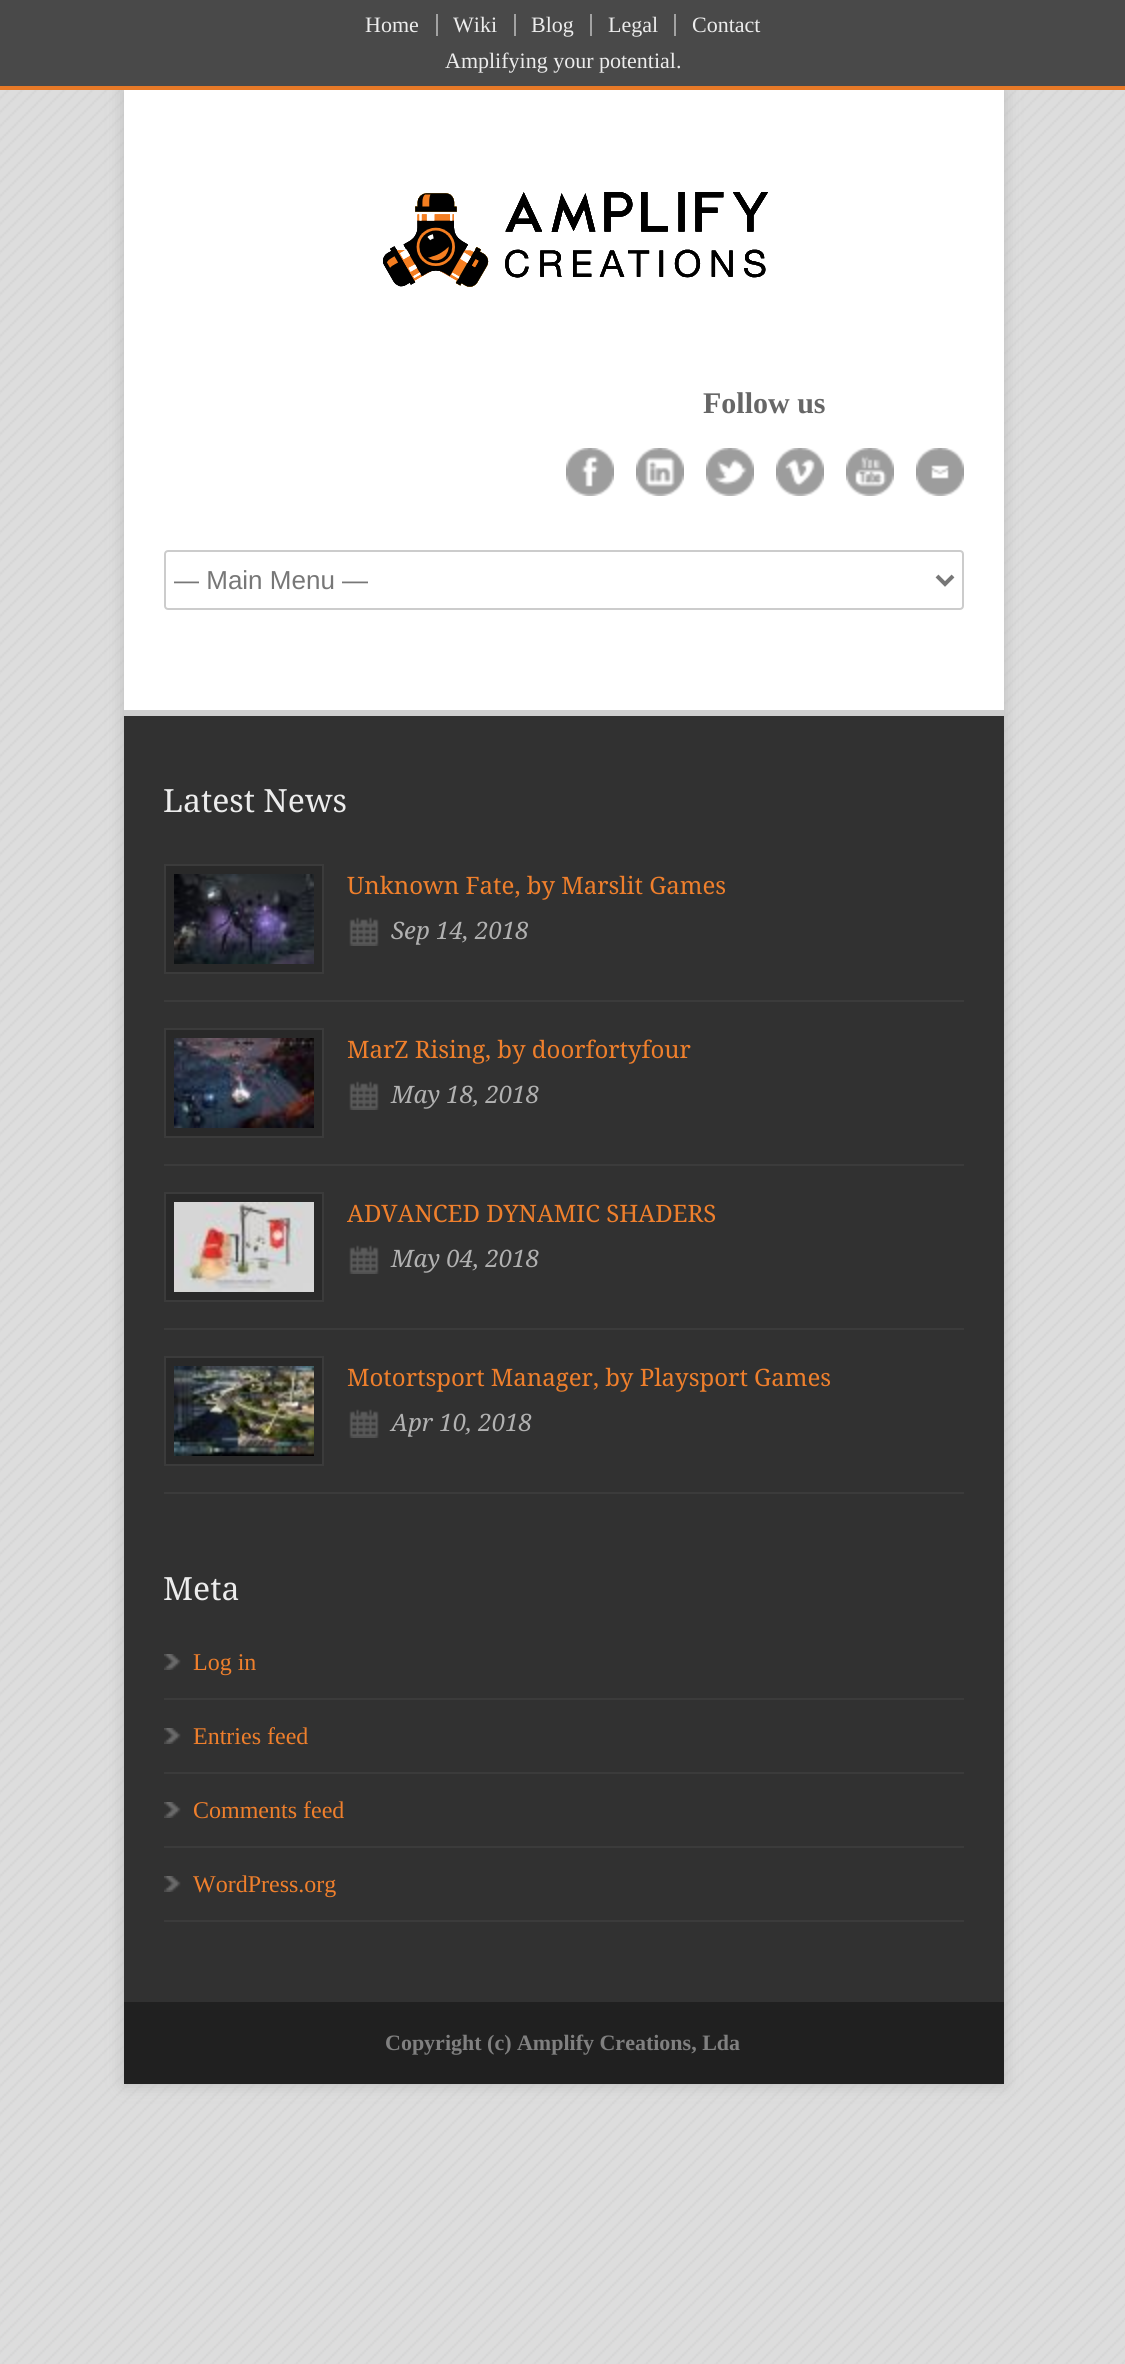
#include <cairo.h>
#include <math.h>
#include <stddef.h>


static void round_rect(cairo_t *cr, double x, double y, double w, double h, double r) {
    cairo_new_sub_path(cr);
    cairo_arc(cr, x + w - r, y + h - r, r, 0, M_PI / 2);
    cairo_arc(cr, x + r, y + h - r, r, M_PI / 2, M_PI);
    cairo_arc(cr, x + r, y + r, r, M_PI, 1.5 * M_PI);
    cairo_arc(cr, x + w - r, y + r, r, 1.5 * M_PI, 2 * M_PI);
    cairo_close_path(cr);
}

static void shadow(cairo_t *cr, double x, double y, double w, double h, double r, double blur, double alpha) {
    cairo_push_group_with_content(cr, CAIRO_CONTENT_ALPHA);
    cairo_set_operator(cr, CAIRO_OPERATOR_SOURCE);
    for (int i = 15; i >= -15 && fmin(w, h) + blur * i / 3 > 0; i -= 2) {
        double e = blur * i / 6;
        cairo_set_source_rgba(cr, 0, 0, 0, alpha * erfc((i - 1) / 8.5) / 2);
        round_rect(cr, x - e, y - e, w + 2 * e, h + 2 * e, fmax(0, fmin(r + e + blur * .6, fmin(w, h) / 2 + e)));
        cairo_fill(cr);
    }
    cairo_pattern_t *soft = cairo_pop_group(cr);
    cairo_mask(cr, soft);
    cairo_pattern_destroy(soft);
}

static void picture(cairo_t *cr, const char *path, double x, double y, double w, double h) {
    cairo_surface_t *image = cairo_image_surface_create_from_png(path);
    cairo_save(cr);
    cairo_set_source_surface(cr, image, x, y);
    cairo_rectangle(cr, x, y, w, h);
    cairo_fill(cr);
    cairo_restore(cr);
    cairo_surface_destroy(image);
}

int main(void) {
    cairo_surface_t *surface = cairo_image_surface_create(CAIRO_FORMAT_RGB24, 1125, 2364);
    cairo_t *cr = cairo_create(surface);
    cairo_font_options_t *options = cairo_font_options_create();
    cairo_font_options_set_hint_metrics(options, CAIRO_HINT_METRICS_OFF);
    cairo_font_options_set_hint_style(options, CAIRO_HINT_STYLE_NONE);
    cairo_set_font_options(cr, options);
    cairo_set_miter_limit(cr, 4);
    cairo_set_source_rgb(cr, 0.867, 0.867, 0.867);
    cairo_paint(cr);
    picture(cr, "img1.png", 0, 90, 1125, 2274);
    cairo_set_source_rgb(cr, 0.733, 0.733, 0.733);
    shadow(cr, 124, 90, 880, 1994, 0, 8, 1);
    cairo_set_source_rgb(cr, 0.286, 0.286, 0.286);
    cairo_rectangle(cr, 0, 0, 1125, 86);
    cairo_fill(cr);
    cairo_set_source_rgb(cr, 0.635, 0.635, 0.635);
    cairo_rectangle(cr, 436, 14, 2, 22);
    cairo_fill(cr);
    cairo_select_font_face(cr, "Liberation Serif", CAIRO_FONT_SLANT_NORMAL, CAIRO_FONT_WEIGHT_NORMAL);
    cairo_set_font_size(cr, 22);
    cairo_set_source_rgb(cr, 0.925, 0.925, 0.925);
    cairo_move_to(cr, 365, 32);
    cairo_show_text(cr, "Home");
    cairo_set_source_rgb(cr, 0.635, 0.635, 0.635);
    cairo_rectangle(cr, 514, 14, 2, 22);
    cairo_fill(cr);
    cairo_set_source_rgb(cr, 0.925, 0.925, 0.925);
    cairo_move_to(cr, 453, 32);
    cairo_show_text(cr, "Wiki");
    cairo_set_source_rgb(cr, 0.635, 0.635, 0.635);
    cairo_rectangle(cr, 590, 14, 2, 22);
    cairo_fill(cr);
    cairo_set_source_rgb(cr, 0.925, 0.925, 0.925);
    cairo_move_to(cr, 531, 32);
    cairo_show_text(cr, "Blog");
    cairo_set_source_rgb(cr, 0.635, 0.635, 0.635);
    cairo_rectangle(cr, 674, 14, 2, 22);
    cairo_fill(cr);
    cairo_set_source_rgb(cr, 0.925, 0.925, 0.925);
    cairo_move_to(cr, 608, 32);
    cairo_show_text(cr, "Legal");
    cairo_move_to(cr, 692, 32);
    cairo_show_text(cr, "Contact");
    cairo_move_to(cr, 445, 68);
    cairo_show_text(cr, "Amplifying your potential.");
    cairo_set_source_rgb(cr, 0.906, 0.475, 0.153);
    cairo_rectangle(cr, 0, 86, 1125, 4);
    cairo_fill(cr);
    cairo_set_source_rgb(cr, 1, 1, 1);
    cairo_rectangle(cr, 124, 90, 880, 620);
    cairo_fill(cr);
    picture(cr, "img2.png", 383, 192, 385, 95);
    cairo_select_font_face(cr, "Liberation Serif", CAIRO_FONT_SLANT_NORMAL, CAIRO_FONT_WEIGHT_BOLD);
    cairo_set_font_size(cr, 30);
    cairo_set_source_rgb(cr, 0.4, 0.4, 0.4);
    cairo_move_to(cr, 703, 413);
    cairo_show_text(cr, "Follow us");
    picture(cr, "img3.png", 566, 448, 48, 48);
    picture(cr, "img4.png", 636, 448, 48, 48);
    picture(cr, "img5.png", 706, 448, 48, 48);
    picture(cr, "img6.png", 776, 448, 48, 48);
    picture(cr, "img7.png", 846, 448, 48, 48);
    picture(cr, "img8.png", 916, 448, 48, 48);
    round_rect(cr, 165, 551, 798, 58, 3);
    cairo_set_source_rgb(cr, 0.8, 0.8, 0.8);
    cairo_stroke(cr);
    cairo_new_path(cr);
    cairo_move_to(cr, 937, 576);
    cairo_line_to(cr, 945, 584);
    cairo_line_to(cr, 953, 576);
    cairo_set_source_rgb(cr, 0.467, 0.467, 0.467);
    cairo_set_line_width(cr, 4);
    cairo_stroke(cr);
    cairo_save(cr);
    cairo_rectangle(cr, 174, 564, 756, 34);
    cairo_clip(cr);
    cairo_select_font_face(cr, "Liberation Sans", CAIRO_FONT_SLANT_NORMAL, CAIRO_FONT_WEIGHT_NORMAL);
    cairo_set_font_size(cr, 26);
    cairo_move_to(cr, 173, 589);
    cairo_show_text(cr, "— Main Menu —");
    cairo_restore(cr);
    cairo_set_source_rgb(cr, 0.192, 0.192, 0.192);
    cairo_rectangle(cr, 124, 716, 880, 1286);
    cairo_fill(cr);
    cairo_set_source_rgb(cr, 0.812, 0.812, 0.812);
    cairo_rectangle(cr, 124, 710, 880, 6);
    cairo_fill(cr);
    cairo_select_font_face(cr, "Droid Serif", CAIRO_FONT_SLANT_NORMAL, CAIRO_FONT_WEIGHT_NORMAL);
    cairo_set_font_size(cr, 32);
    cairo_set_source_rgb(cr, 0.925, 0.925, 0.925);
    cairo_move_to(cr, 163, 812);
    cairo_show_text(cr, "Latest News");
    cairo_set_source_rgb(cr, 0.231, 0.231, 0.231);
    cairo_rectangle(cr, 164, 1000, 800, 2);
    cairo_fill(cr);
    cairo_set_source_rgb(cr, 0.161, 0.161, 0.161);
    cairo_rectangle(cr, 165, 865, 158, 108);
    cairo_fill_preserve(cr);
    cairo_set_source_rgb(cr, 0.231, 0.231, 0.231);
    cairo_set_line_width(cr, 2);
    cairo_stroke(cr);
    picture(cr, "img9.png", 174, 874, 140, 90);
    cairo_set_font_size(cr, 24);
    cairo_set_source_rgb(cr, 0.937, 0.498, 0.173);
    cairo_move_to(cr, 347, 894);
    cairo_show_text(cr, "Unknown Fate, by Marslit Games");
    picture(cr, "img10.png", 349, 917, 30, 29);
    cairo_select_font_face(cr, "Droid Serif", CAIRO_FONT_SLANT_ITALIC, CAIRO_FONT_WEIGHT_NORMAL);
    cairo_set_source_rgb(cr, 0.694, 0.694, 0.694);
    cairo_move_to(cr, 391, 939);
    cairo_show_text(cr, "Sep 14, 2018");
    cairo_set_source_rgb(cr, 0.231, 0.231, 0.231);
    cairo_rectangle(cr, 164, 1164, 800, 2);
    cairo_fill(cr);
    cairo_set_source_rgb(cr, 0.161, 0.161, 0.161);
    cairo_rectangle(cr, 165, 1029, 158, 108);
    cairo_fill_preserve(cr);
    cairo_set_source_rgb(cr, 0.231, 0.231, 0.231);
    cairo_stroke(cr);
    picture(cr, "img11.png", 174, 1038, 140, 90);
    cairo_select_font_face(cr, "Droid Serif", CAIRO_FONT_SLANT_NORMAL, CAIRO_FONT_WEIGHT_NORMAL);
    cairo_set_source_rgb(cr, 0.937, 0.498, 0.173);
    cairo_move_to(cr, 347, 1058);
    cairo_show_text(cr, "MarZ Rising, by doorfortyfour");
    picture(cr, "img10.png", 349, 1081, 30, 29);
    cairo_select_font_face(cr, "Droid Serif", CAIRO_FONT_SLANT_ITALIC, CAIRO_FONT_WEIGHT_NORMAL);
    cairo_set_source_rgb(cr, 0.694, 0.694, 0.694);
    cairo_move_to(cr, 391, 1103);
    cairo_show_text(cr, "May 18, 2018");
    cairo_set_source_rgb(cr, 0.231, 0.231, 0.231);
    cairo_rectangle(cr, 164, 1328, 800, 2);
    cairo_fill(cr);
    cairo_set_source_rgb(cr, 0.161, 0.161, 0.161);
    cairo_rectangle(cr, 165, 1193, 158, 108);
    cairo_fill_preserve(cr);
    cairo_set_source_rgb(cr, 0.231, 0.231, 0.231);
    cairo_stroke(cr);
    picture(cr, "img12.png", 174, 1202, 140, 90);
    cairo_select_font_face(cr, "Droid Serif", CAIRO_FONT_SLANT_NORMAL, CAIRO_FONT_WEIGHT_NORMAL);
    cairo_set_source_rgb(cr, 0.937, 0.498, 0.173);
    cairo_move_to(cr, 347, 1222);
    cairo_show_text(cr, "ADVANCED DYNAMIC SHADERS");
    picture(cr, "img10.png", 349, 1245, 30, 29);
    cairo_select_font_face(cr, "Droid Serif", CAIRO_FONT_SLANT_ITALIC, CAIRO_FONT_WEIGHT_NORMAL);
    cairo_set_source_rgb(cr, 0.694, 0.694, 0.694);
    cairo_move_to(cr, 391, 1267);
    cairo_show_text(cr, "May 04, 2018");
    cairo_set_source_rgb(cr, 0.231, 0.231, 0.231);
    cairo_rectangle(cr, 164, 1492, 800, 2);
    cairo_fill(cr);
    cairo_set_source_rgb(cr, 0.161, 0.161, 0.161);
    cairo_rectangle(cr, 165, 1357, 158, 108);
    cairo_fill_preserve(cr);
    cairo_set_source_rgb(cr, 0.231, 0.231, 0.231);
    cairo_stroke(cr);
    picture(cr, "img13.png", 174, 1366, 140, 90);
    cairo_select_font_face(cr, "Droid Serif", CAIRO_FONT_SLANT_NORMAL, CAIRO_FONT_WEIGHT_NORMAL);
    cairo_set_source_rgb(cr, 0.937, 0.498, 0.173);
    cairo_move_to(cr, 347, 1386);
    cairo_show_text(cr, "Motortsport Manager, by Playsport Games");
    picture(cr, "img10.png", 349, 1409, 30, 29);
    cairo_select_font_face(cr, "Droid Serif", CAIRO_FONT_SLANT_ITALIC, CAIRO_FONT_WEIGHT_NORMAL);
    cairo_set_source_rgb(cr, 0.694, 0.694, 0.694);
    cairo_move_to(cr, 391, 1431);
    cairo_show_text(cr, "Apr 10, 2018");
    cairo_select_font_face(cr, "Droid Serif", CAIRO_FONT_SLANT_NORMAL, CAIRO_FONT_WEIGHT_NORMAL);
    cairo_set_font_size(cr, 32);
    cairo_set_source_rgb(cr, 0.925, 0.925, 0.925);
    cairo_move_to(cr, 163, 1600);
    cairo_show_text(cr, "Meta");
    picture(cr, "img14.png", 164, 1654, 17, 16);
    cairo_set_source_rgb(cr, 0.231, 0.231, 0.231);
    cairo_rectangle(cr, 164, 1698, 800, 2);
    cairo_fill(cr);
    cairo_select_font_face(cr, "Liberation Serif", CAIRO_FONT_SLANT_NORMAL, CAIRO_FONT_WEIGHT_NORMAL);
    cairo_set_font_size(cr, 24);
    cairo_set_source_rgb(cr, 0.937, 0.498, 0.173);
    cairo_move_to(cr, 193, 1670);
    cairo_show_text(cr, "Log in");
    picture(cr, "img14.png", 164, 1728, 17, 16);
    cairo_set_source_rgb(cr, 0.231, 0.231, 0.231);
    cairo_rectangle(cr, 164, 1772, 800, 2);
    cairo_fill(cr);
    cairo_set_source_rgb(cr, 0.937, 0.498, 0.173);
    cairo_move_to(cr, 193, 1744);
    cairo_show_text(cr, "Entries feed");
    picture(cr, "img14.png", 164, 1802, 17, 16);
    cairo_set_source_rgb(cr, 0.231, 0.231, 0.231);
    cairo_rectangle(cr, 164, 1846, 800, 2);
    cairo_fill(cr);
    cairo_set_source_rgb(cr, 0.937, 0.498, 0.173);
    cairo_move_to(cr, 193, 1818);
    cairo_show_text(cr, "Comments feed");
    picture(cr, "img14.png", 164, 1876, 17, 16);
    cairo_set_source_rgb(cr, 0.231, 0.231, 0.231);
    cairo_rectangle(cr, 164, 1920, 800, 2);
    cairo_fill(cr);
    cairo_set_source_rgb(cr, 0.937, 0.498, 0.173);
    cairo_move_to(cr, 193, 1892);
    cairo_show_text(cr, "WordPress.org");
    cairo_set_source_rgb(cr, 0.125, 0.125, 0.125);
    cairo_rectangle(cr, 124, 2002, 880, 82);
    cairo_fill(cr);
    cairo_select_font_face(cr, "Liberation Serif", CAIRO_FONT_SLANT_NORMAL, CAIRO_FONT_WEIGHT_BOLD);
    cairo_set_font_size(cr, 22);
    cairo_set_source_rgb(cr, 0.502, 0.502, 0.502);
    cairo_move_to(cr, 385, 2050);
    cairo_show_text(cr, "Copyright (c) Amplify Creations, Lda");
    cairo_surface_write_to_png(surface, "page.png");
    cairo_font_options_destroy(options);
    cairo_destroy(cr);
    cairo_surface_destroy(surface);
    return 0;
}
